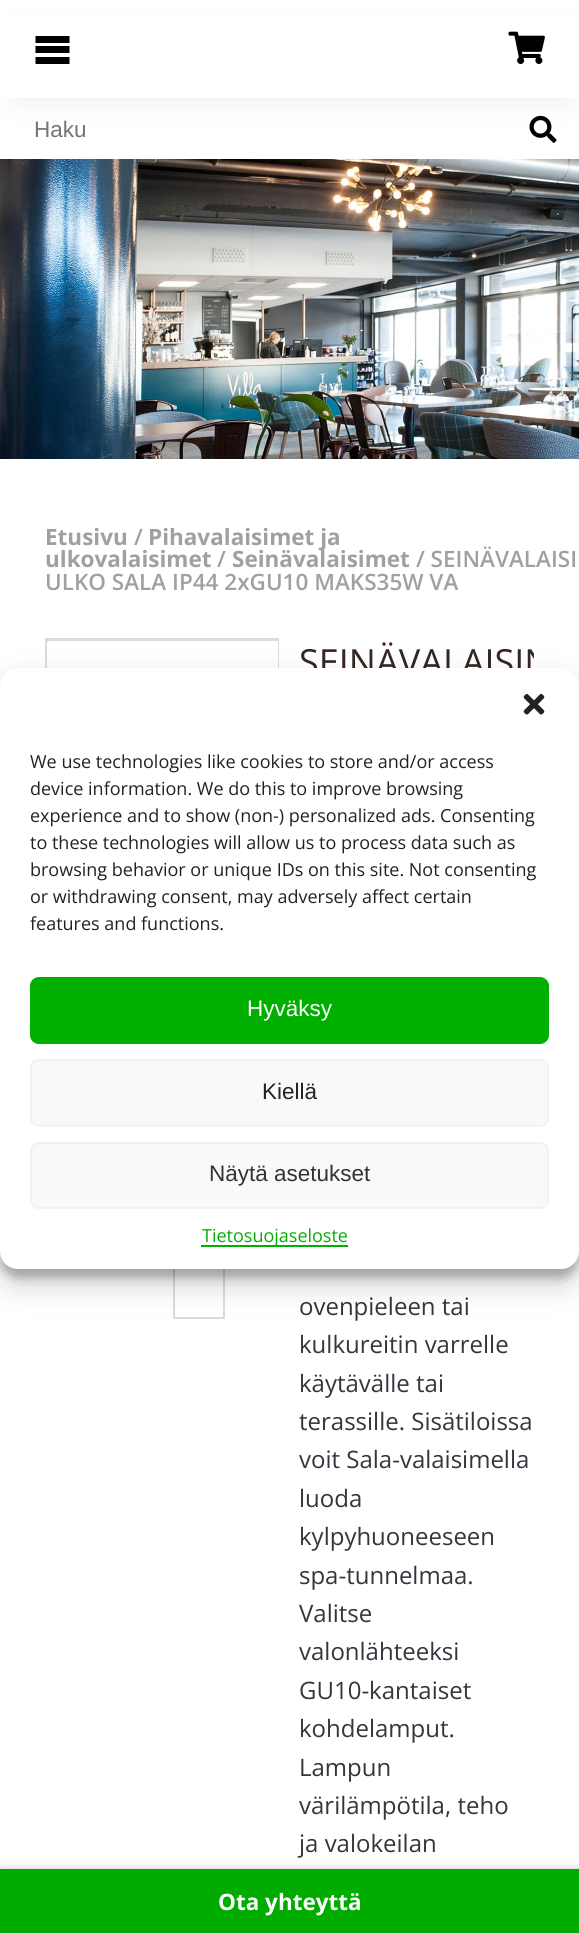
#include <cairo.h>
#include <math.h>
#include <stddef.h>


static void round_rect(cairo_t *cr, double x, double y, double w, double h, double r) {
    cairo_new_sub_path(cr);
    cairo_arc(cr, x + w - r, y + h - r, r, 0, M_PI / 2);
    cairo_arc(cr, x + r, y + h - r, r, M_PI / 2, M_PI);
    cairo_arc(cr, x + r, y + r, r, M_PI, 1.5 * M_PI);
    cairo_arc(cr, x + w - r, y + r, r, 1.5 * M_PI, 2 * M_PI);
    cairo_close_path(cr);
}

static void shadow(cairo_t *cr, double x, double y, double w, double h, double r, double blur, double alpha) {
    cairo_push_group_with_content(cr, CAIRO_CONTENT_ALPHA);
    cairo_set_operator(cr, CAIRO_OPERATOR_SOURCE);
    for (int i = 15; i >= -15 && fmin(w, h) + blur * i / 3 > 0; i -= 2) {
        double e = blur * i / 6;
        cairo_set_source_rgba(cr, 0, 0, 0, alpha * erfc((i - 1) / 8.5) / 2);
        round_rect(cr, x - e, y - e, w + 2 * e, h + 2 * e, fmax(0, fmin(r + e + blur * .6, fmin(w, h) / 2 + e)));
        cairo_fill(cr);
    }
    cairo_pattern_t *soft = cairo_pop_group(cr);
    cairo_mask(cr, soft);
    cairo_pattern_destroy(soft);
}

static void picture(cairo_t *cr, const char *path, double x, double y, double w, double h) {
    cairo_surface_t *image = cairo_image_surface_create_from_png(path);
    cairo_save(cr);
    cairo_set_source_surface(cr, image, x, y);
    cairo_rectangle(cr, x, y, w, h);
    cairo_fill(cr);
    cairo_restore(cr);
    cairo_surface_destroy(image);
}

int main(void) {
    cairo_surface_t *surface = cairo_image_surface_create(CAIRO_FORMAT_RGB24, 579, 1933);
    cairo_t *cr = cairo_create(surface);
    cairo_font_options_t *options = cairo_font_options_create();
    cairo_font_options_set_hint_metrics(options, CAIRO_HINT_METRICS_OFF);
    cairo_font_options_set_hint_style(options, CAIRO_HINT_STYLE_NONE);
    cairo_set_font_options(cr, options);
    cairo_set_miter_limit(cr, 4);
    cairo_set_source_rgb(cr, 1, 1, 1);
    cairo_paint(cr);
    picture(cr, "img2.png", 529, 115, 28, 28);
    cairo_set_source_rgb(cr, 0.196, 0.196, 0.196);
    shadow(cr, 18, 32, 549, 67, 0, 15, 0.1);
    cairo_set_source_rgb(cr, 1, 1, 1);
    cairo_rectangle(cr, 1, 15, 578, 83);
    cairo_fill(cr);
    cairo_set_source_rgb(cr, 0, 0, 0);
    cairo_new_path(cr);
    cairo_move_to(cr, 35.5, 36);
    cairo_line_to(cr, 69.5, 36);
    cairo_line_to(cr, 69.5, 43);
    cairo_line_to(cr, 35.5, 43);
    cairo_close_path(cr);
    cairo_move_to(cr, 35.5, 46);
    cairo_line_to(cr, 69.5, 46);
    cairo_line_to(cr, 69.5, 53);
    cairo_line_to(cr, 35.5, 53);
    cairo_close_path(cr);
    cairo_move_to(cr, 35.5, 57);
    cairo_line_to(cr, 69.5, 57);
    cairo_line_to(cr, 69.5, 64);
    cairo_line_to(cr, 35.5, 64);
    cairo_close_path(cr);
    cairo_fill(cr);
    picture(cr, "img1.png", 508, 31, 37, 33);
    cairo_select_font_face(cr, "Liberation Sans", CAIRO_FONT_SLANT_NORMAL, CAIRO_FONT_WEIGHT_NORMAL);
    cairo_set_font_size(cr, 22.5);
    cairo_set_source_rgb(cr, 0.459, 0.459, 0.459);
    cairo_move_to(cr, 34, 137);
    cairo_show_text(cr, "Haku");
    picture(cr, "img3.png", 0, 159, 579, 300);
    cairo_select_font_face(cr, "Open Sans", CAIRO_FONT_SLANT_NORMAL, CAIRO_FONT_WEIGHT_BOLD);
    cairo_set_source_rgb(cr, 0.627, 0.627, 0.627);
    cairo_move_to(cr, 45, 545);
    cairo_show_text(cr, "Etusivu");
    cairo_select_font_face(cr, "Open Sans SemiBold", CAIRO_FONT_SLANT_NORMAL, CAIRO_FONT_WEIGHT_NORMAL);
    cairo_move_to(cr, 134, 545);
    cairo_show_text(cr, "/");
    cairo_select_font_face(cr, "Open Sans", CAIRO_FONT_SLANT_NORMAL, CAIRO_FONT_WEIGHT_BOLD);
    cairo_move_to(cr, 148, 545);
    cairo_show_text(cr, "Pihavalaisimet ja");
    cairo_move_to(cr, 45, 567);
    cairo_show_text(cr, "ulkovalaisimet");
    cairo_select_font_face(cr, "Open Sans SemiBold", CAIRO_FONT_SLANT_NORMAL, CAIRO_FONT_WEIGHT_NORMAL);
    cairo_move_to(cr, 217, 567);
    cairo_show_text(cr, "/");
    cairo_select_font_face(cr, "Open Sans", CAIRO_FONT_SLANT_NORMAL, CAIRO_FONT_WEIGHT_BOLD);
    cairo_move_to(cr, 232, 567);
    cairo_show_text(cr, "Seinävalaisimet");
    cairo_select_font_face(cr, "Open Sans SemiBold", CAIRO_FONT_SLANT_NORMAL, CAIRO_FONT_WEIGHT_NORMAL);
    cairo_move_to(cr, 416, 567);
    cairo_show_text(cr, "/ SEINÄVALAISI");
    cairo_move_to(cr, 45, 590);
    cairo_show_text(cr, "ULKO SALA IP44 2xGU10 MAKS35W VA");
    cairo_rectangle(cr, 46, 639, 232, 232);
    cairo_set_source_rgb(cr, 0.831, 0.871, 0.882);
    cairo_stroke(cr);
    cairo_rectangle(cr, 47, 640, 231, 2);
    cairo_fill(cr);
    picture(cr, "img4.png", 48, 641, 230, 27);
    cairo_rectangle(cr, 174, 909, 50, 409);
    cairo_stroke(cr);
    cairo_save(cr);
    cairo_rectangle(cr, 45, 638, 489, 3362);
    cairo_clip(cr);
    cairo_select_font_face(cr, "Open Sans", CAIRO_FONT_SLANT_NORMAL, CAIRO_FONT_WEIGHT_NORMAL);
    cairo_set_font_size(cr, 36);
    cairo_set_source_rgb(cr, 0.208, 0.149, 0.141);
    cairo_move_to(cr, 299, 675);
    cairo_show_text(cr, "SEINÄVALAISIN");
    cairo_restore(cr);
    cairo_select_font_face(cr, "Open Sans", CAIRO_FONT_SLANT_NORMAL, CAIRO_FONT_WEIGHT_NORMAL);
    cairo_set_font_size(cr, 24);
    cairo_set_source_rgb(cr, 0.208, 0.208, 0.239);
    cairo_move_to(cr, 299, 1315);
    cairo_show_text(cr, "ovenpieleen tai");
    cairo_move_to(cr, 299, 1353);
    cairo_show_text(cr, "kulkureitin varrelle");
    cairo_move_to(cr, 299, 1392);
    cairo_show_text(cr, "käytävälle tai");
    cairo_move_to(cr, 299, 1430);
    cairo_show_text(cr, "terassille. Sisätiloissa");
    cairo_move_to(cr, 299, 1468);
    cairo_show_text(cr, "voit Sala-valaisimella");
    cairo_move_to(cr, 299, 1507);
    cairo_show_text(cr, "luoda");
    cairo_move_to(cr, 299, 1545);
    cairo_show_text(cr, "kylpyhuoneeseen");
    cairo_move_to(cr, 299, 1584);
    cairo_show_text(cr, "spa-tunnelmaa.");
    cairo_move_to(cr, 299, 1622);
    cairo_show_text(cr, "Valitse");
    cairo_move_to(cr, 299, 1660);
    cairo_show_text(cr, "valonlähteeksi");
    cairo_move_to(cr, 299, 1699);
    cairo_show_text(cr, "GU10-kantaiset");
    cairo_move_to(cr, 299, 1737);
    cairo_show_text(cr, "kohdelamput.");
    cairo_move_to(cr, 299, 1776);
    cairo_show_text(cr, "Lampun");
    cairo_move_to(cr, 299, 1814);
    cairo_show_text(cr, "värilämpötila, teho");
    cairo_move_to(cr, 299, 1852);
    cairo_show_text(cr, "ja valokeilan");
    cairo_set_source_rgb(cr, 0, 0, 0);
    shadow(cr, 0, 677, 579, 601, 18, 4.5, 0.23);
    shadow(cr, 0, 683, 579, 601, 18, 15, 0.19);
    cairo_set_source_rgb(cr, 1, 1, 1);
    round_rect(cr, 0, 668, 579, 601, 18);
    cairo_fill(cr);
    picture(cr, "img5.png", 523, 694, 22, 21);
    cairo_set_font_size(cr, 18);
    cairo_set_source_rgb(cr, 0.133, 0.133, 0.133);
    cairo_move_to(cr, 30, 768);
    cairo_show_text(cr, "We use technologies like cookies to store and/or access");
    cairo_move_to(cr, 30, 795);
    cairo_show_text(cr, "device information. We do this to improve browsing");
    cairo_move_to(cr, 30, 822);
    cairo_show_text(cr, "experience and to show (non-) personalized ads. Consenting");
    cairo_move_to(cr, 30, 849);
    cairo_show_text(cr, "to these technologies will allow us to process data such as");
    cairo_move_to(cr, 30, 876);
    cairo_show_text(cr, "browsing behavior or unique IDs on this site. Not consenting");
    cairo_move_to(cr, 30, 903);
    cairo_show_text(cr, "or withdrawing consent, may adversely affect certain");
    cairo_move_to(cr, 30, 930);
    cairo_show_text(cr, "features and functions.");
    cairo_set_source_rgb(cr, 0, 0.686, 0);
    round_rect(cr, 31, 978, 517, 65, 8);
    cairo_fill_preserve(cr);
    cairo_stroke(cr);
    cairo_select_font_face(cr, "Liberation Sans", CAIRO_FONT_SLANT_NORMAL, CAIRO_FONT_WEIGHT_NORMAL);
    cairo_set_font_size(cr, 22.5);
    cairo_set_source_rgb(cr, 1, 1, 1);
    cairo_move_to(cr, 247, 1016);
    cairo_show_text(cr, "Hyväksy");
    cairo_set_source_rgb(cr, 0.976, 0.976, 0.976);
    round_rect(cr, 31, 1060, 517, 66, 8);
    cairo_fill_preserve(cr);
    cairo_set_source_rgb(cr, 0.949, 0.949, 0.949);
    cairo_stroke(cr);
    cairo_set_source_rgb(cr, 0.133, 0.133, 0.133);
    cairo_move_to(cr, 262, 1099);
    cairo_show_text(cr, "Kiellä");
    cairo_set_source_rgb(cr, 0.976, 0.976, 0.976);
    round_rect(cr, 31, 1143, 517, 65, 8);
    cairo_fill_preserve(cr);
    cairo_set_source_rgb(cr, 0.949, 0.949, 0.949);
    cairo_stroke(cr);
    cairo_set_source_rgb(cr, 0.2, 0.2, 0.2);
    cairo_move_to(cr, 209, 1181);
    cairo_show_text(cr, "Näytä asetukset");
    cairo_set_source_rgb(cr, 0, 0.686, 0);
    cairo_rectangle(cr, 201, 1245, 147, 2);
    cairo_fill(cr);
    cairo_select_font_face(cr, "Open Sans", CAIRO_FONT_SLANT_NORMAL, CAIRO_FONT_WEIGHT_NORMAL);
    cairo_set_font_size(cr, 18);
    cairo_move_to(cr, 202, 1242);
    cairo_show_text(cr, "Tietosuojaseloste");
    cairo_set_source_rgb(cr, 0.8, 0.8, 0.8);
    shadow(cr, 0, 1869, 579, 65, 0, 4.5, 1);
    cairo_set_source_rgb(cr, 0, 0.675, 0);
    cairo_rectangle(cr, 0, 1869, 579, 64);
    cairo_fill(cr);
    cairo_select_font_face(cr, "Open Sans", CAIRO_FONT_SLANT_NORMAL, CAIRO_FONT_WEIGHT_BOLD);
    cairo_set_font_size(cr, 22.5);
    cairo_set_source_rgb(cr, 1, 1, 1);
    cairo_move_to(cr, 218, 1910);
    cairo_show_text(cr, "Ota yhteyttä");
    cairo_surface_write_to_png(surface, "page.png");
    cairo_font_options_destroy(options);
    cairo_destroy(cr);
    cairo_surface_destroy(surface);
    return 0;
}
